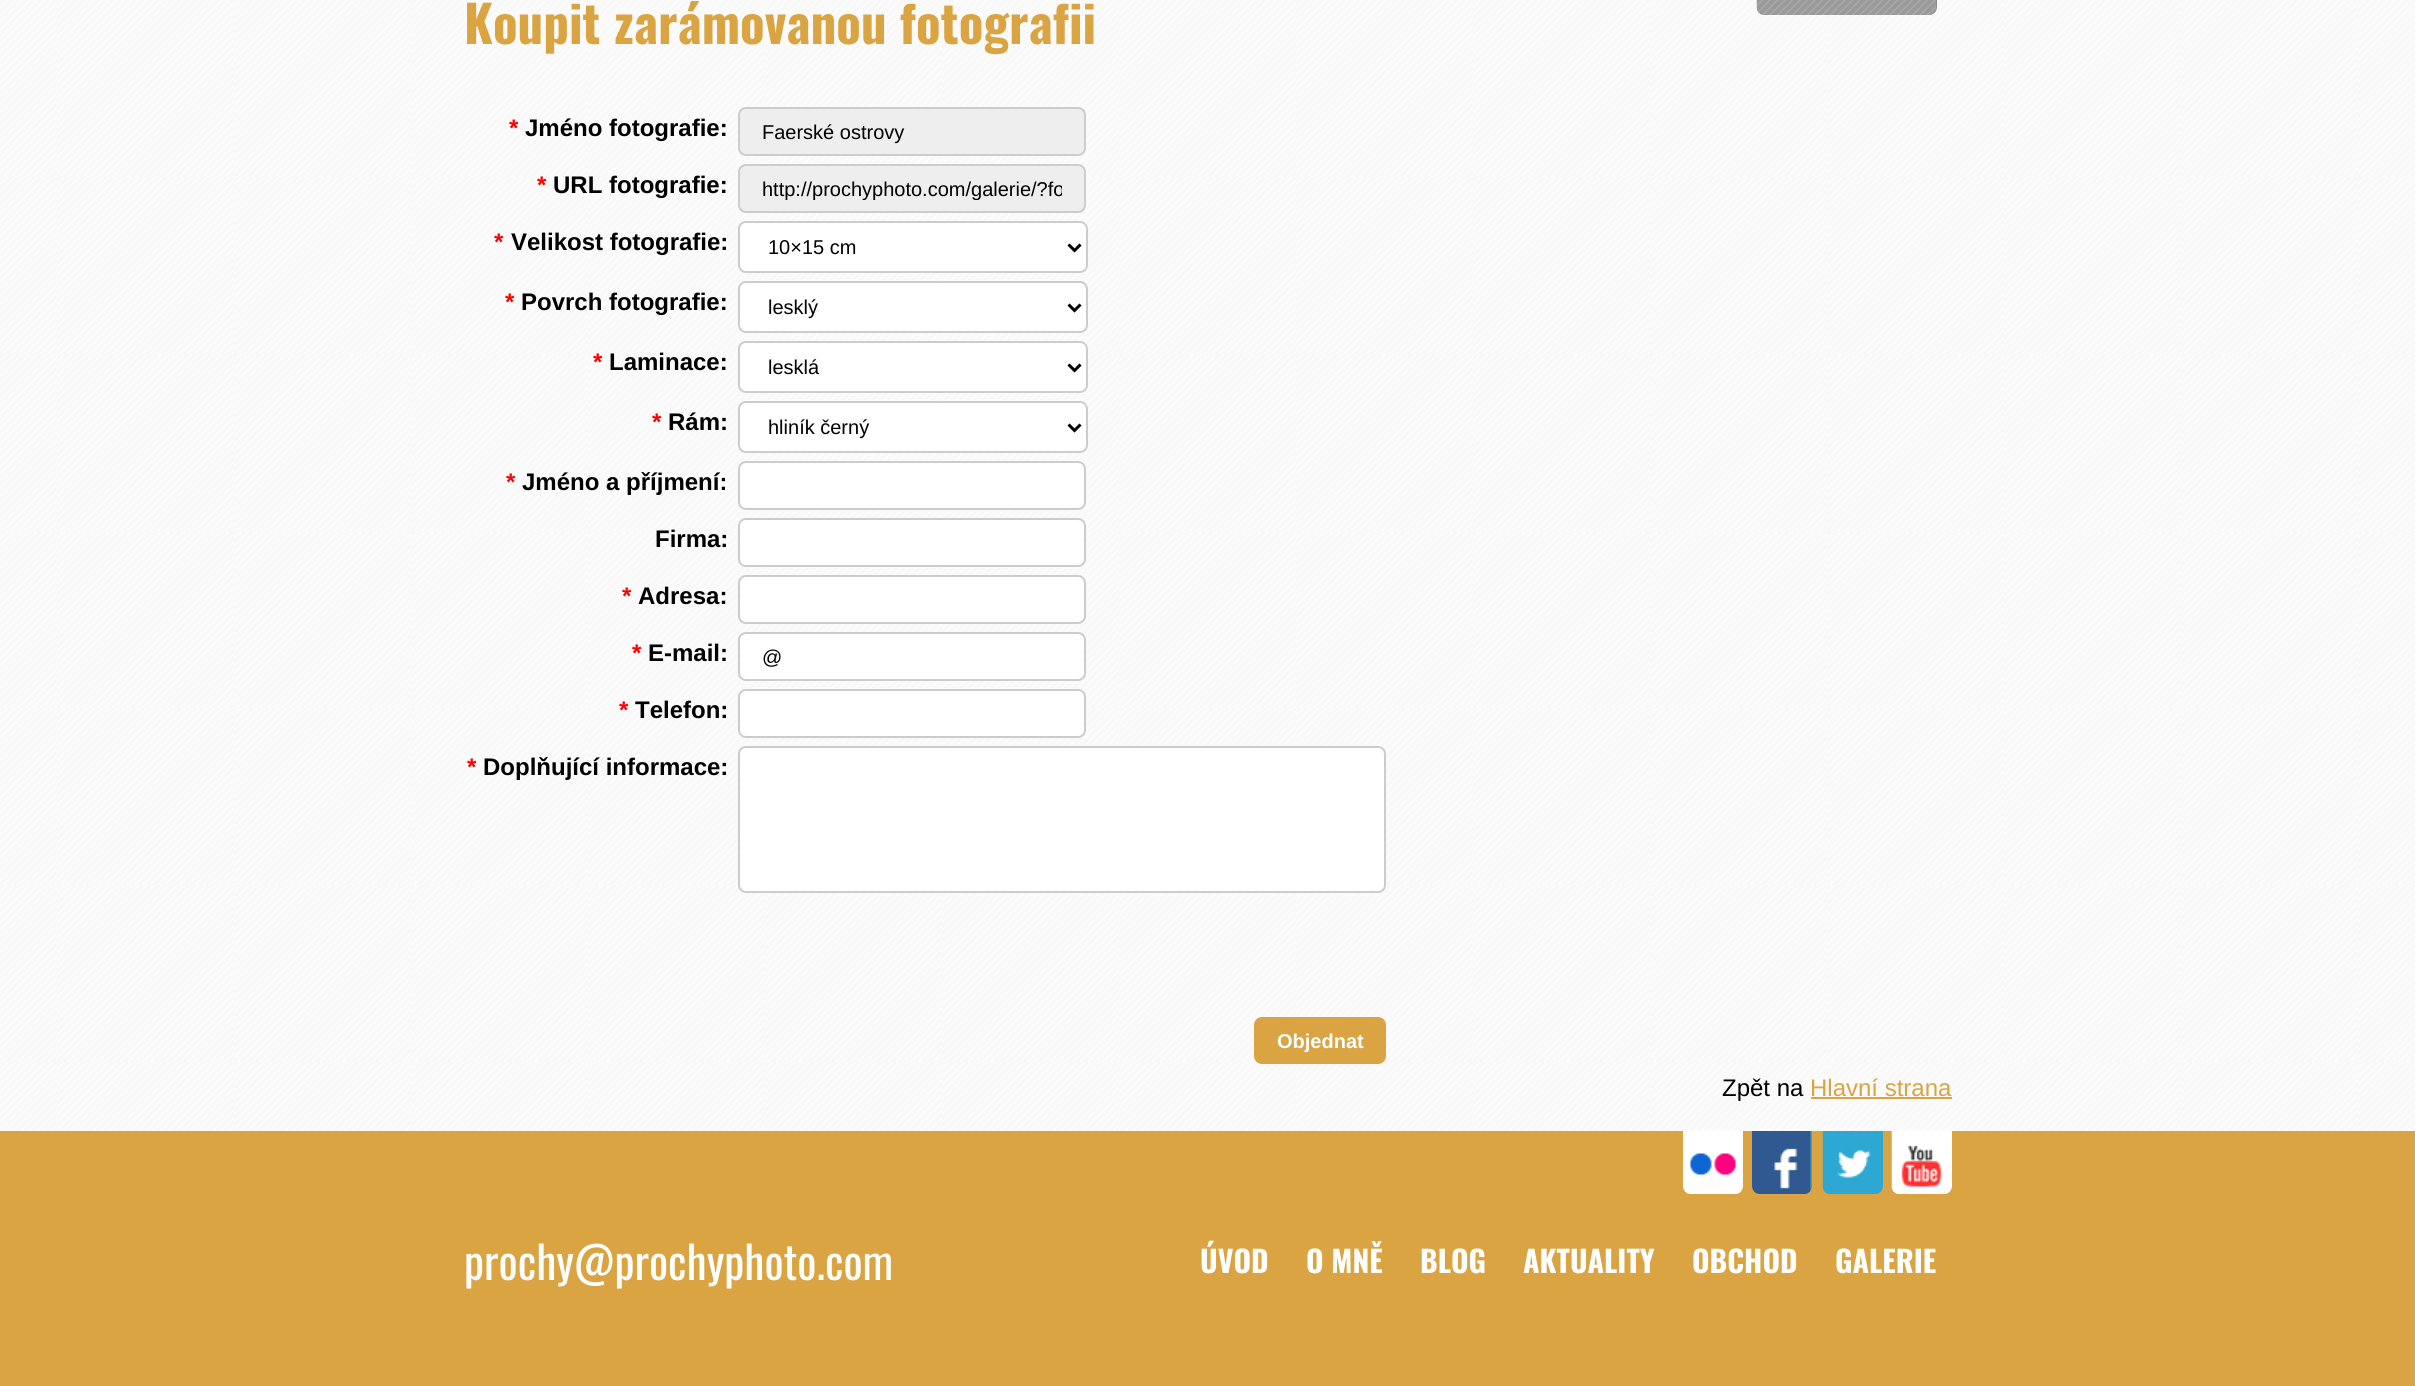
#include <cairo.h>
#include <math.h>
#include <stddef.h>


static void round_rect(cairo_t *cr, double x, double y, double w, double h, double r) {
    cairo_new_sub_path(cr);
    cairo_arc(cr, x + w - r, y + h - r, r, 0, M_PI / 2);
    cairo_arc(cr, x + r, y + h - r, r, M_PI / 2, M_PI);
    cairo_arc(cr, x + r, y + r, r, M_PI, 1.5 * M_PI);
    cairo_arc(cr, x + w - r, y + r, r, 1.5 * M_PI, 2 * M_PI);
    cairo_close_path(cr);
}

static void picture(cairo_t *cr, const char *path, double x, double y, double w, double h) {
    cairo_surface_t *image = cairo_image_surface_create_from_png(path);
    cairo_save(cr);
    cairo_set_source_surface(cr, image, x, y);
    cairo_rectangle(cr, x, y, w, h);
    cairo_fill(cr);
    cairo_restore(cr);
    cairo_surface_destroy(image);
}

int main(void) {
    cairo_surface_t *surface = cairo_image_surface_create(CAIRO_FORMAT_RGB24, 2415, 1386);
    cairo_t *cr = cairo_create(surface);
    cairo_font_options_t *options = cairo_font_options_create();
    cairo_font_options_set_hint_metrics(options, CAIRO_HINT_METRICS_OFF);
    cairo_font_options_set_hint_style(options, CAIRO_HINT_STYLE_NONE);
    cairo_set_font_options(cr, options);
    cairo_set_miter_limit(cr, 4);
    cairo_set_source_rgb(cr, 1, 1, 1);
    cairo_paint(cr);
    picture(cr, "img1.png", 0, 0, 2415, 1131);
    cairo_select_font_face(cr, "Oswald", CAIRO_FONT_SLANT_NORMAL, CAIRO_FONT_WEIGHT_BOLD);
    cairo_set_font_size(cr, 51);
    cairo_set_source_rgb(cr, 0.851, 0.643, 0.255);
    cairo_move_to(cr, 464, 44);
    cairo_show_text(cr, "Koupit zarámovanou fotografii");
    cairo_set_source_rgb(cr, 0.533, 0.533, 0.533);
    round_rect(cr, 1757, -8, 180, 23, 8);
    cairo_fill(cr);
    picture(cr, "img2.png", 1756, 0, 181, 15);
    cairo_select_font_face(cr, "Liberation Sans", CAIRO_FONT_SLANT_NORMAL, CAIRO_FONT_WEIGHT_BOLD);
    cairo_set_font_size(cr, 24);
    cairo_set_source_rgb(cr, 1, 0, 0);
    cairo_move_to(cr, 509, 136);
    cairo_show_text(cr, "*");
    cairo_set_source_rgb(cr, 0, 0, 0);
    cairo_move_to(cr, 525, 136);
    cairo_show_text(cr, "Jméno fotografie:");
    cairo_set_source_rgb(cr, 0.933, 0.933, 0.933);
    round_rect(cr, 739, 108, 346, 47, 7);
    cairo_fill_preserve(cr);
    cairo_set_source_rgb(cr, 0.8, 0.8, 0.8);
    cairo_stroke(cr);
    cairo_select_font_face(cr, "Liberation Sans", CAIRO_FONT_SLANT_NORMAL, CAIRO_FONT_WEIGHT_NORMAL);
    cairo_set_font_size(cr, 20);
    cairo_set_source_rgb(cr, 0, 0, 0);
    cairo_move_to(cr, 762, 139);
    cairo_show_text(cr, "Faerské ostrovy");
    cairo_select_font_face(cr, "Liberation Sans", CAIRO_FONT_SLANT_NORMAL, CAIRO_FONT_WEIGHT_BOLD);
    cairo_set_font_size(cr, 24);
    cairo_set_source_rgb(cr, 1, 0, 0);
    cairo_move_to(cr, 537, 193);
    cairo_show_text(cr, "*");
    cairo_set_source_rgb(cr, 0, 0, 0);
    cairo_move_to(cr, 553, 193);
    cairo_show_text(cr, "URL fotografie:");
    cairo_set_source_rgb(cr, 0.933, 0.933, 0.933);
    round_rect(cr, 739, 165, 346, 47, 7);
    cairo_fill_preserve(cr);
    cairo_set_source_rgb(cr, 0.8, 0.8, 0.8);
    cairo_stroke(cr);
    cairo_save(cr);
    cairo_rectangle(cr, 762, 177, 300, 23);
    cairo_clip(cr);
    cairo_select_font_face(cr, "Liberation Sans", CAIRO_FONT_SLANT_NORMAL, CAIRO_FONT_WEIGHT_NORMAL);
    cairo_set_font_size(cr, 20);
    cairo_set_source_rgb(cr, 0, 0, 0);
    cairo_move_to(cr, 762, 196);
    cairo_show_text(cr, "http://prochyphoto.com/galerie/?fo");
    cairo_restore(cr);
    cairo_set_source_rgb(cr, 1, 0, 0);
    cairo_move_to(cr, 494, 250);
    cairo_show_text(cr, "*");
    cairo_set_source_rgb(cr, 0, 0, 0);
    cairo_move_to(cr, 511, 250);
    cairo_show_text(cr, "Velikost fotografie:");
    cairo_set_source_rgb(cr, 1, 1, 1);
    round_rect(cr, 739, 222, 348, 50, 7);
    cairo_fill_preserve(cr);
    cairo_set_source_rgb(cr, 0.8, 0.8, 0.8);
    cairo_stroke(cr);
    cairo_new_path(cr);
    cairo_move_to(cr, 1068.5, 244.5);
    cairo_line_to(cr, 1074.5, 250.5);
    cairo_line_to(cr, 1080.5, 244.5);
    cairo_set_source_rgb(cr, 0, 0, 0);
    cairo_set_line_width(cr, 3);
    cairo_stroke(cr);
    cairo_select_font_face(cr, "Liberation Sans", CAIRO_FONT_SLANT_NORMAL, CAIRO_FONT_WEIGHT_NORMAL);
    cairo_set_font_size(cr, 20);
    cairo_move_to(cr, 768, 254);
    cairo_show_text(cr, "10×15 cm");
    cairo_select_font_face(cr, "Liberation Sans", CAIRO_FONT_SLANT_NORMAL, CAIRO_FONT_WEIGHT_BOLD);
    cairo_set_font_size(cr, 24);
    cairo_set_source_rgb(cr, 1, 0, 0);
    cairo_move_to(cr, 505, 310);
    cairo_show_text(cr, "*");
    cairo_set_source_rgb(cr, 0, 0, 0);
    cairo_move_to(cr, 521, 310);
    cairo_show_text(cr, "Povrch fotografie:");
    cairo_set_source_rgb(cr, 1, 1, 1);
    round_rect(cr, 739, 282, 348, 50, 7);
    cairo_fill_preserve(cr);
    cairo_set_source_rgb(cr, 0.8, 0.8, 0.8);
    cairo_set_line_width(cr, 2);
    cairo_stroke(cr);
    cairo_new_path(cr);
    cairo_move_to(cr, 1068.5, 304.5);
    cairo_line_to(cr, 1074.5, 310.5);
    cairo_line_to(cr, 1080.5, 304.5);
    cairo_set_source_rgb(cr, 0, 0, 0);
    cairo_set_line_width(cr, 3);
    cairo_stroke(cr);
    cairo_select_font_face(cr, "Liberation Sans", CAIRO_FONT_SLANT_NORMAL, CAIRO_FONT_WEIGHT_NORMAL);
    cairo_set_font_size(cr, 20);
    cairo_move_to(cr, 768, 314);
    cairo_show_text(cr, "lesklý");
    cairo_select_font_face(cr, "Liberation Sans", CAIRO_FONT_SLANT_NORMAL, CAIRO_FONT_WEIGHT_BOLD);
    cairo_set_font_size(cr, 24);
    cairo_set_source_rgb(cr, 1, 0, 0);
    cairo_move_to(cr, 593, 370);
    cairo_show_text(cr, "*");
    cairo_set_source_rgb(cr, 0, 0, 0);
    cairo_move_to(cr, 609, 370);
    cairo_show_text(cr, "Laminace:");
    cairo_set_source_rgb(cr, 1, 1, 1);
    round_rect(cr, 739, 342, 348, 50, 7);
    cairo_fill_preserve(cr);
    cairo_set_source_rgb(cr, 0.8, 0.8, 0.8);
    cairo_set_line_width(cr, 2);
    cairo_stroke(cr);
    cairo_new_path(cr);
    cairo_move_to(cr, 1068.5, 364.5);
    cairo_line_to(cr, 1074.5, 370.5);
    cairo_line_to(cr, 1080.5, 364.5);
    cairo_set_source_rgb(cr, 0, 0, 0);
    cairo_set_line_width(cr, 3);
    cairo_stroke(cr);
    cairo_select_font_face(cr, "Liberation Sans", CAIRO_FONT_SLANT_NORMAL, CAIRO_FONT_WEIGHT_NORMAL);
    cairo_set_font_size(cr, 20);
    cairo_move_to(cr, 768, 374);
    cairo_show_text(cr, "lesklá");
    cairo_select_font_face(cr, "Liberation Sans", CAIRO_FONT_SLANT_NORMAL, CAIRO_FONT_WEIGHT_BOLD);
    cairo_set_font_size(cr, 24);
    cairo_set_source_rgb(cr, 1, 0, 0);
    cairo_move_to(cr, 652, 430);
    cairo_show_text(cr, "*");
    cairo_set_source_rgb(cr, 0, 0, 0);
    cairo_move_to(cr, 668, 430);
    cairo_show_text(cr, "Rám:");
    cairo_set_source_rgb(cr, 1, 1, 1);
    round_rect(cr, 739, 402, 348, 50, 7);
    cairo_fill_preserve(cr);
    cairo_set_source_rgb(cr, 0.8, 0.8, 0.8);
    cairo_set_line_width(cr, 2);
    cairo_stroke(cr);
    cairo_new_path(cr);
    cairo_move_to(cr, 1068.5, 424.5);
    cairo_line_to(cr, 1074.5, 430.5);
    cairo_line_to(cr, 1080.5, 424.5);
    cairo_set_source_rgb(cr, 0, 0, 0);
    cairo_set_line_width(cr, 3);
    cairo_stroke(cr);
    cairo_select_font_face(cr, "Liberation Sans", CAIRO_FONT_SLANT_NORMAL, CAIRO_FONT_WEIGHT_NORMAL);
    cairo_set_font_size(cr, 20);
    cairo_move_to(cr, 768, 434);
    cairo_show_text(cr, "hliník černý");
    cairo_select_font_face(cr, "Liberation Sans", CAIRO_FONT_SLANT_NORMAL, CAIRO_FONT_WEIGHT_BOLD);
    cairo_set_font_size(cr, 24);
    cairo_set_source_rgb(cr, 1, 0, 0);
    cairo_move_to(cr, 506, 490);
    cairo_show_text(cr, "*");
    cairo_set_source_rgb(cr, 0, 0, 0);
    cairo_move_to(cr, 522, 490);
    cairo_show_text(cr, "Jméno a příjmení:");
    cairo_set_source_rgb(cr, 1, 1, 1);
    round_rect(cr, 739, 462, 346, 47, 7);
    cairo_fill_preserve(cr);
    cairo_set_source_rgb(cr, 0.8, 0.8, 0.8);
    cairo_set_line_width(cr, 2);
    cairo_stroke(cr);
    cairo_set_source_rgb(cr, 0, 0, 0);
    cairo_move_to(cr, 655, 547);
    cairo_show_text(cr, "Firma:");
    cairo_set_source_rgb(cr, 1, 1, 1);
    round_rect(cr, 739, 519, 346, 47, 7);
    cairo_fill_preserve(cr);
    cairo_set_source_rgb(cr, 0.8, 0.8, 0.8);
    cairo_stroke(cr);
    cairo_set_source_rgb(cr, 1, 0, 0);
    cairo_move_to(cr, 622, 604);
    cairo_show_text(cr, "*");
    cairo_set_source_rgb(cr, 0, 0, 0);
    cairo_move_to(cr, 638, 604);
    cairo_show_text(cr, "Adresa:");
    cairo_set_source_rgb(cr, 1, 1, 1);
    round_rect(cr, 739, 576, 346, 47, 7);
    cairo_fill_preserve(cr);
    cairo_set_source_rgb(cr, 0.8, 0.8, 0.8);
    cairo_stroke(cr);
    cairo_set_source_rgb(cr, 1, 0, 0);
    cairo_move_to(cr, 632, 661);
    cairo_show_text(cr, "*");
    cairo_set_source_rgb(cr, 0, 0, 0);
    cairo_move_to(cr, 648, 661);
    cairo_show_text(cr, "E-mail:");
    cairo_set_source_rgb(cr, 1, 1, 1);
    round_rect(cr, 739, 633, 346, 47, 7);
    cairo_fill_preserve(cr);
    cairo_set_source_rgb(cr, 0.8, 0.8, 0.8);
    cairo_stroke(cr);
    cairo_select_font_face(cr, "Liberation Sans", CAIRO_FONT_SLANT_NORMAL, CAIRO_FONT_WEIGHT_NORMAL);
    cairo_set_font_size(cr, 20);
    cairo_set_source_rgb(cr, 0, 0, 0);
    cairo_move_to(cr, 762, 664);
    cairo_show_text(cr, "@");
    cairo_select_font_face(cr, "Liberation Sans", CAIRO_FONT_SLANT_NORMAL, CAIRO_FONT_WEIGHT_BOLD);
    cairo_set_font_size(cr, 24);
    cairo_set_source_rgb(cr, 1, 0, 0);
    cairo_move_to(cr, 619, 718);
    cairo_show_text(cr, "*");
    cairo_set_source_rgb(cr, 0, 0, 0);
    cairo_move_to(cr, 635, 718);
    cairo_show_text(cr, "Telefon:");
    cairo_set_source_rgb(cr, 1, 1, 1);
    round_rect(cr, 739, 690, 346, 47, 7);
    cairo_fill_preserve(cr);
    cairo_set_source_rgb(cr, 0.8, 0.8, 0.8);
    cairo_stroke(cr);
    cairo_set_source_rgb(cr, 1, 0, 0);
    cairo_move_to(cr, 467, 775);
    cairo_show_text(cr, "*");
    cairo_set_source_rgb(cr, 0, 0, 0);
    cairo_move_to(cr, 483, 775);
    cairo_show_text(cr, "Doplňující informace:");
    cairo_set_source_rgb(cr, 1, 1, 1);
    round_rect(cr, 739, 747, 646, 145, 7);
    cairo_fill_preserve(cr);
    cairo_set_source_rgb(cr, 0.8, 0.8, 0.8);
    cairo_stroke(cr);
    cairo_set_source_rgb(cr, 0.851, 0.643, 0.255);
    round_rect(cr, 1254, 1017, 132, 47, 8);
    cairo_fill(cr);
    cairo_set_font_size(cr, 20);
    cairo_set_source_rgb(cr, 1, 1, 1);
    cairo_move_to(cr, 1277, 1048);
    cairo_show_text(cr, "Objednat");
    cairo_select_font_face(cr, "Liberation Sans", CAIRO_FONT_SLANT_NORMAL, CAIRO_FONT_WEIGHT_NORMAL);
    cairo_set_font_size(cr, 24);
    cairo_set_source_rgb(cr, 0, 0, 0);
    cairo_move_to(cr, 1722, 1096);
    cairo_show_text(cr, "Zpět na");
    cairo_set_source_rgb(cr, 0.851, 0.643, 0.255);
    cairo_move_to(cr, 1810, 1096);
    cairo_show_text(cr, "Hlavní strana");
    cairo_rectangle(cr, 1811, 1097, 141, 2);
    cairo_fill(cr);
    cairo_rectangle(cr, 0, 1131, 2415, 255);
    cairo_fill(cr);
    picture(cr, "img3.png", 1683, 1131, 60, 63);
    picture(cr, "img4.png", 1752, 1131, 60, 63);
    cairo_save(cr);
    cairo_rectangle(cr, 0, 1131, 2415, 255);
    cairo_clip(cr);
    cairo_set_source_rgb(cr, 0.173, 0.659, 0.824);
    round_rect(cr, 1823, 1124, 60, 70, 8);
    cairo_fill(cr);
    cairo_restore(cr);
    picture(cr, "img5.png", 1822, 1131, 61, 63);
    cairo_save(cr);
    cairo_rectangle(cr, 0, 1131, 2415, 255);
    cairo_clip(cr);
    cairo_set_source_rgb(cr, 1, 1, 1);
    round_rect(cr, 1892, 1124, 60, 70, 8);
    cairo_fill(cr);
    cairo_restore(cr);
    picture(cr, "img6.png", 1891, 1131, 59, 63);
    cairo_select_font_face(cr, "Oswald", CAIRO_FONT_SLANT_NORMAL, CAIRO_FONT_WEIGHT_NORMAL);
    cairo_set_font_size(cr, 45);
    cairo_set_source_rgb(cr, 1, 1, 1);
    cairo_move_to(cr, 464, 1280);
    cairo_show_text(cr, "prochy@prochyphoto.com");
    cairo_select_font_face(cr, "Oswald", CAIRO_FONT_SLANT_NORMAL, CAIRO_FONT_WEIGHT_BOLD);
    cairo_set_font_size(cr, 30);
    cairo_move_to(cr, 1200, 1273);
    cairo_show_text(cr, "ÚVOD");
    cairo_move_to(cr, 1306, 1273);
    cairo_show_text(cr, "O MNĚ");
    cairo_move_to(cr, 1420, 1273);
    cairo_show_text(cr, "BLOG");
    cairo_move_to(cr, 1523, 1273);
    cairo_show_text(cr, "AKTUALITY");
    cairo_move_to(cr, 1692, 1273);
    cairo_show_text(cr, "OBCHOD");
    cairo_move_to(cr, 1835, 1273);
    cairo_show_text(cr, "GALERIE");
    cairo_surface_write_to_png(surface, "page.png");
    cairo_font_options_destroy(options);
    cairo_destroy(cr);
    cairo_surface_destroy(surface);
    return 0;
}
